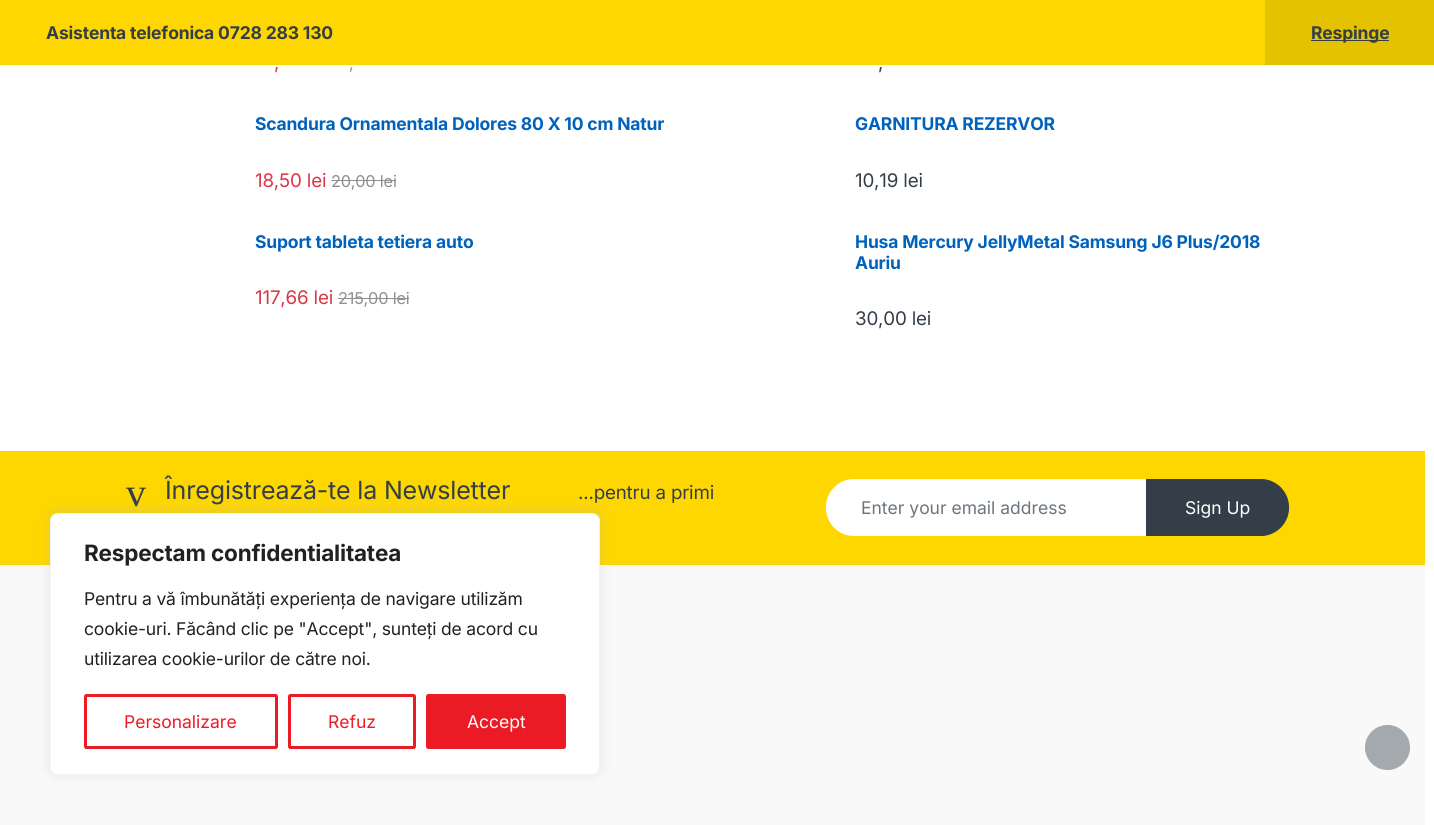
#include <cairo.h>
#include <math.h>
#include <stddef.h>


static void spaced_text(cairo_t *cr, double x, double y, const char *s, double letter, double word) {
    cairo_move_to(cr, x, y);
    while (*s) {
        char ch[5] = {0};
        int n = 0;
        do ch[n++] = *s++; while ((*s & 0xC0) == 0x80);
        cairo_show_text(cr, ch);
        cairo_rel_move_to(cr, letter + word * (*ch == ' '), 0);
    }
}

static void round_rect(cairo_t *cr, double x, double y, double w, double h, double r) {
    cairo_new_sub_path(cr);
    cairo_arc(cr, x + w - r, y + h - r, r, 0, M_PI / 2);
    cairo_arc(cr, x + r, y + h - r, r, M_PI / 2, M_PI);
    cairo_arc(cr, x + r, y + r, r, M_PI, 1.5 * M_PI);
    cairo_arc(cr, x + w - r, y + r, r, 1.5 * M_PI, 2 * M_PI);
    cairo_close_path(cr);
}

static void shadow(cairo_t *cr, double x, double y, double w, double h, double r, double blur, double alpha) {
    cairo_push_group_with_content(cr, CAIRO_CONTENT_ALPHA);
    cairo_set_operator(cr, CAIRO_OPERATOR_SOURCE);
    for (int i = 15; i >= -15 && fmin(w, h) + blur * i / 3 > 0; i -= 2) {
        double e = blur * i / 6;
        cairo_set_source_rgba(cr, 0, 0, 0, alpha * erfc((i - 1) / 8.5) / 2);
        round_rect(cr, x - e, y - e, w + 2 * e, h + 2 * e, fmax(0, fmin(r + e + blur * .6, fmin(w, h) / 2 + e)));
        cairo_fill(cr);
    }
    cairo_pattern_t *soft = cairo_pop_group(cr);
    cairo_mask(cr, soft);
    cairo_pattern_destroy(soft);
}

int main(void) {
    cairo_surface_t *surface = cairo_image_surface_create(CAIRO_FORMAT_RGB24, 1434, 825);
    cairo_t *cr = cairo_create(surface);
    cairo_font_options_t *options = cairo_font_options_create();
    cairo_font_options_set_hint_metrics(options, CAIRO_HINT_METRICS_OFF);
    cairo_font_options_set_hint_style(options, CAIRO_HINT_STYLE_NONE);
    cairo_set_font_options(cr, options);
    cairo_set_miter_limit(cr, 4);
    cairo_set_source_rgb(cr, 1, 1, 1);
    cairo_paint(cr);
    cairo_set_source_rgb(cr, 0.996, 0.843, 0);
    cairo_rectangle(cr, 0, 0, 1265, 65);
    cairo_fill(cr);
    cairo_select_font_face(cr, "Inter", CAIRO_FONT_SLANT_NORMAL, CAIRO_FONT_WEIGHT_BOLD);
    cairo_set_font_size(cr, 17.5);
    cairo_set_source_rgb(cr, 0.2, 0.243, 0.282);
    spaced_text(cr, 46, 39, "Asistenta telefonica 0728 283 130", -0.18, 0);
    cairo_set_source_rgb(cr, 0.898, 0.761, 0);
    cairo_rectangle(cr, 1265, 0, 169, 65);
    cairo_fill(cr);
    cairo_set_source_rgb(cr, 0.2, 0.243, 0.282);
    cairo_rectangle(cr, 1311, 40, 78, 1);
    cairo_fill(cr);
    spaced_text(cr, 1311, 39, "Respinge", -0.18, 0);
    cairo_select_font_face(cr, "Inter", CAIRO_FONT_SLANT_NORMAL, CAIRO_FONT_WEIGHT_NORMAL);
    cairo_set_font_size(cr, 18.75);
    cairo_set_source_rgb(cr, 0.863, 0.208, 0.271);
    spaced_text(cr, 274, 69, ",", -0.18, 0);
    cairo_set_font_size(cr, 16.25);
    cairo_set_source_rgb(cr, 0.561, 0.561, 0.561);
    spaced_text(cr, 349, 69, ",", -0.18, 0);
    cairo_select_font_face(cr, "Inter", CAIRO_FONT_SLANT_NORMAL, CAIRO_FONT_WEIGHT_BOLD);
    cairo_set_font_size(cr, 17.5);
    cairo_set_source_rgb(cr, 0, 0.384, 0.741);
    spaced_text(cr, 255, 130, "Scandura Ornamentala Dolores 80 X 10 cm Natur", -0.18, 0);
    cairo_select_font_face(cr, "Inter", CAIRO_FONT_SLANT_NORMAL, CAIRO_FONT_WEIGHT_NORMAL);
    cairo_set_font_size(cr, 18.75);
    cairo_set_source_rgb(cr, 0.863, 0.208, 0.271);
    spaced_text(cr, 255, 187, "18,50 lei", -0.18, 0);
    cairo_set_font_size(cr, 16.25);
    cairo_set_source_rgb(cr, 0.561, 0.561, 0.561);
    spaced_text(cr, 331, 187, "20,00 lei", -0.18, 0);
    cairo_rectangle(cr, 331, 180, 65, 1);
    cairo_fill(cr);
    cairo_select_font_face(cr, "Inter", CAIRO_FONT_SLANT_NORMAL, CAIRO_FONT_WEIGHT_BOLD);
    cairo_set_font_size(cr, 17.5);
    cairo_set_source_rgb(cr, 0, 0.384, 0.741);
    spaced_text(cr, 255, 248, "Suport tableta tetiera auto", -0.18, 0);
    cairo_select_font_face(cr, "Inter", CAIRO_FONT_SLANT_NORMAL, CAIRO_FONT_WEIGHT_NORMAL);
    cairo_set_font_size(cr, 18.75);
    cairo_set_source_rgb(cr, 0.863, 0.208, 0.271);
    spaced_text(cr, 255, 304, "117,66 lei", -0.18, 0);
    cairo_set_font_size(cr, 16.25);
    cairo_set_source_rgb(cr, 0.561, 0.561, 0.561);
    spaced_text(cr, 338, 304, "215,00 lei", -0.18, 0);
    cairo_rectangle(cr, 338, 298, 71, 1);
    cairo_fill(cr);
    cairo_set_font_size(cr, 18.75);
    cairo_set_source_rgb(cr, 0.2, 0.243, 0.282);
    spaced_text(cr, 878, 69, ",", -0.18, 0);
    cairo_select_font_face(cr, "Inter", CAIRO_FONT_SLANT_NORMAL, CAIRO_FONT_WEIGHT_BOLD);
    cairo_set_font_size(cr, 17.5);
    cairo_set_source_rgb(cr, 0, 0.384, 0.741);
    spaced_text(cr, 855, 130, "GARNITURA REZERVOR", -0.18, 0);
    cairo_select_font_face(cr, "Inter", CAIRO_FONT_SLANT_NORMAL, CAIRO_FONT_WEIGHT_NORMAL);
    cairo_set_font_size(cr, 18.75);
    cairo_set_source_rgb(cr, 0.2, 0.243, 0.282);
    spaced_text(cr, 855, 187, "10,19 lei", -0.18, 0);
    cairo_select_font_face(cr, "Inter", CAIRO_FONT_SLANT_NORMAL, CAIRO_FONT_WEIGHT_BOLD);
    cairo_set_font_size(cr, 17.5);
    cairo_set_source_rgb(cr, 0, 0.384, 0.741);
    spaced_text(cr, 855, 248, "Husa Mercury JellyMetal Samsung J6 Plus/2018", -0.18, 0);
    spaced_text(cr, 855, 269, "Auriu", -0.18, 0);
    cairo_select_font_face(cr, "Inter", CAIRO_FONT_SLANT_NORMAL, CAIRO_FONT_WEIGHT_NORMAL);
    cairo_set_font_size(cr, 18.75);
    cairo_set_source_rgb(cr, 0.2, 0.243, 0.282);
    spaced_text(cr, 855, 325, "30,00 lei", -0.18, 0);
    cairo_set_source_rgb(cr, 0.996, 0.843, 0);
    cairo_rectangle(cr, 0, 451, 1425, 114);
    cairo_fill(cr);
    cairo_select_font_face(cr, "Liberation Serif", CAIRO_FONT_SLANT_NORMAL, CAIRO_FONT_WEIGHT_NORMAL);
    cairo_set_font_size(cr, 40);
    cairo_set_source_rgb(cr, 0.2, 0.243, 0.282);
    spaced_text(cr, 126, 506, "v", -0.18, 0);
    cairo_select_font_face(cr, "Inter", CAIRO_FONT_SLANT_NORMAL, CAIRO_FONT_WEIGHT_NORMAL);
    cairo_set_font_size(cr, 25);
    spaced_text(cr, 165, 499, "Înregistrează-te la Newsletter", -0.18, 0);
    cairo_set_font_size(cr, 18.75);
    spaced_text(cr, 578, 499, "...pentru a primi", -0.18, 0);
    cairo_set_source_rgb(cr, 1, 1, 1);
    cairo_new_path(cr);
    cairo_move_to(cr, 854, 479);
    cairo_line_to(cr, 1148, 479);
    cairo_line_to(cr, 1148, 536);
    cairo_line_to(cr, 854, 536);
    cairo_curve_to(cr, 838.5, 536, 826, 523.5, 826, 508);
    cairo_line_to(cr, 826, 507);
    cairo_curve_to(cr, 826, 491.5, 838.5, 479, 854, 479);
    cairo_close_path(cr);
    cairo_fill(cr);
    cairo_set_font_size(cr, 17.5);
    cairo_set_source_rgb(cr, 0.424, 0.459, 0.49);
    cairo_move_to(cr, 861, 514);
    cairo_show_text(cr, "Enter your email address");
    cairo_set_source_rgb(cr, 0.2, 0.243, 0.282);
    cairo_new_path(cr);
    cairo_move_to(cr, 1146.5, 479.5);
    cairo_line_to(cr, 1261, 479.5);
    cairo_curve_to(cr, 1276, 479.5, 1288.5, 492, 1288.5, 507);
    cairo_line_to(cr, 1288.5, 508);
    cairo_curve_to(cr, 1288.5, 523, 1276, 535.5, 1261, 535.5);
    cairo_line_to(cr, 1146.5, 535.5);
    cairo_close_path(cr);
    cairo_fill_preserve(cr);
    cairo_set_line_width(cr, 1);
    cairo_stroke(cr);
    cairo_set_source_rgb(cr, 1, 1, 1);
    cairo_move_to(cr, 1185, 514);
    cairo_show_text(cr, "Sign Up");
    cairo_set_source_rgb(cr, 0.973, 0.973, 0.973);
    cairo_rectangle(cr, 0, 565, 1425, 260);
    cairo_fill(cr);
    cairo_set_source_rgb(cr, 0.675, 0.671, 0.671);
    shadow(cr, 50, 511, 550, 263, 8, 6, 0.3);
    cairo_set_source_rgb(cr, 1, 1, 1);
    round_rect(cr, 50.5, 513.5, 549, 261, 7.5);
    cairo_fill_preserve(cr);
    cairo_set_source_rgb(cr, 0.957, 0.957, 0.957);
    cairo_stroke(cr);
    cairo_select_font_face(cr, "Inter", CAIRO_FONT_SLANT_NORMAL, CAIRO_FONT_WEIGHT_BOLD);
    cairo_set_font_size(cr, 22.5);
    cairo_set_source_rgb(cr, 0.129, 0.129, 0.129);
    spaced_text(cr, 84, 561, "Respectam confidentialitatea", -0.18, 0);
    cairo_select_font_face(cr, "Inter", CAIRO_FONT_SLANT_NORMAL, CAIRO_FONT_WEIGHT_NORMAL);
    cairo_set_font_size(cr, 17.5);
    spaced_text(cr, 84, 605, "Pentru a vă îmbunătăți experiența de navigare utilizăm", -0.18, 0);
    spaced_text(cr, 84, 635, "cookie-uri. Făcând clic pe \"Accept\", sunteți de acord cu", -0.18, 0);
    spaced_text(cr, 84, 665, "utilizarea cookie-urilor de către noi.", -0.18, 0);
    round_rect(cr, 85.5, 695.5, 191, 52, 1);
    cairo_set_source_rgb(cr, 0.918, 0.106, 0.145);
    cairo_set_line_width(cr, 3);
    cairo_stroke(cr);
    cairo_move_to(cr, 124, 728);
    cairo_show_text(cr, "Personalizare");
    round_rect(cr, 289.5, 695.5, 125, 52, 1);
    cairo_stroke(cr);
    cairo_move_to(cr, 328, 728);
    cairo_show_text(cr, "Refuz");
    round_rect(cr, 427.5, 695.5, 137, 52, 1);
    cairo_fill_preserve(cr);
    cairo_stroke(cr);
    cairo_set_source_rgb(cr, 1, 1, 1);
    cairo_move_to(cr, 467, 728);
    cairo_show_text(cr, "Accept");
    cairo_set_source_rgb(cr, 0.643, 0.663, 0.682);
    cairo_new_path(cr);
    cairo_arc(cr, 1387.5, 747.5, 22, 0, 2 * M_PI);
    cairo_fill_preserve(cr);
    cairo_set_line_width(cr, 1);
    cairo_stroke(cr);
    cairo_surface_write_to_png(surface, "page.png");
    cairo_font_options_destroy(options);
    cairo_destroy(cr);
    cairo_surface_destroy(surface);
    return 0;
}
